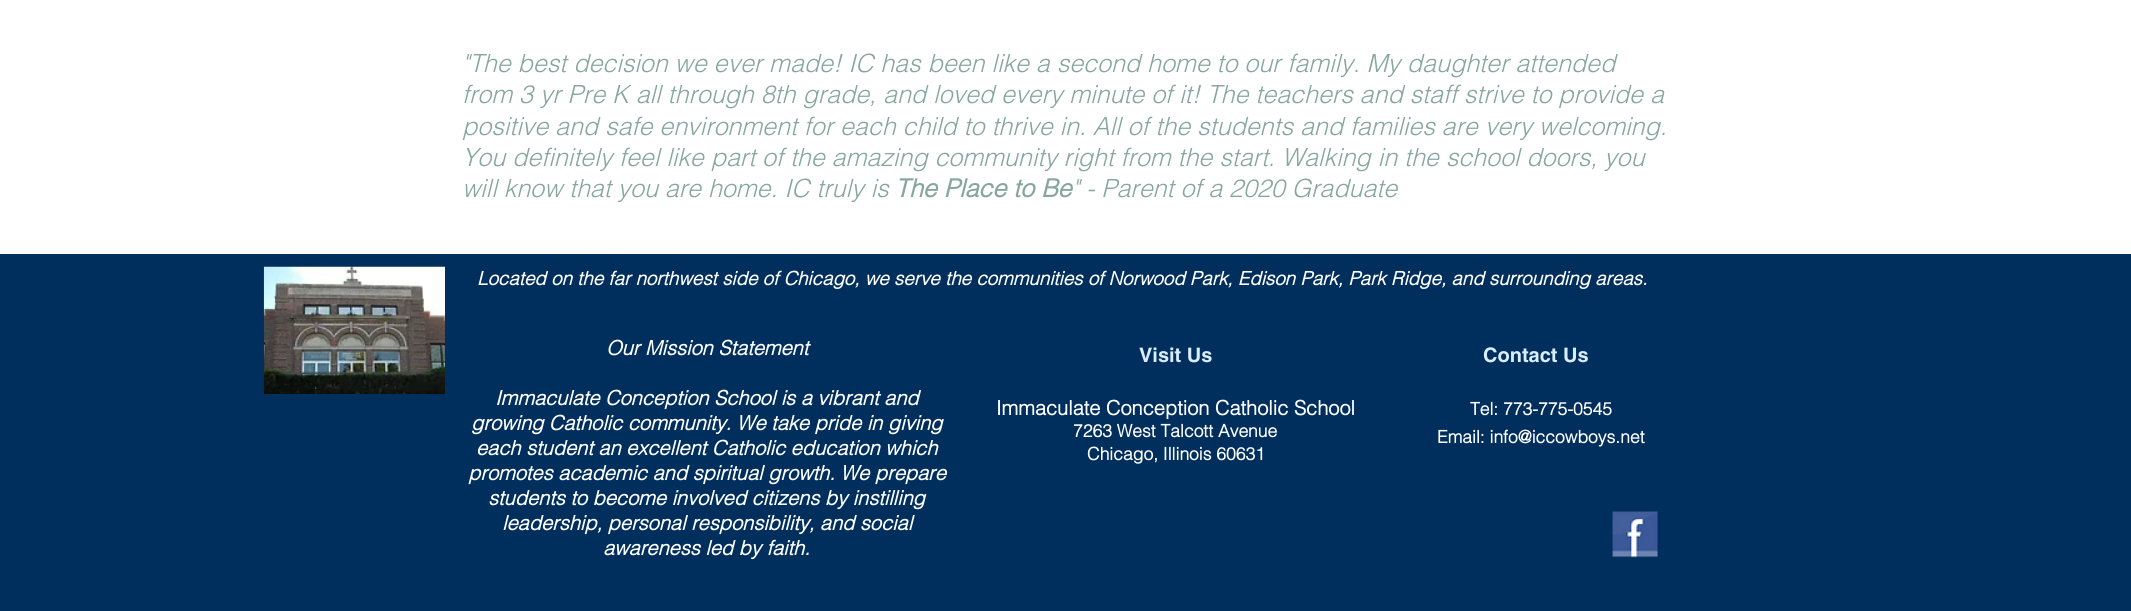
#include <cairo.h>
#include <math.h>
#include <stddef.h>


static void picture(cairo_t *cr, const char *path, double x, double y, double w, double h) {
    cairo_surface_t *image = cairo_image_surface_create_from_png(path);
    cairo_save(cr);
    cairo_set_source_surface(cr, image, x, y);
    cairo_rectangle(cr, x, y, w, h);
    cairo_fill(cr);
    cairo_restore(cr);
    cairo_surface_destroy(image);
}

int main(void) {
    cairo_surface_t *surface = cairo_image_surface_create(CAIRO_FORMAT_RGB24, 2131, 611);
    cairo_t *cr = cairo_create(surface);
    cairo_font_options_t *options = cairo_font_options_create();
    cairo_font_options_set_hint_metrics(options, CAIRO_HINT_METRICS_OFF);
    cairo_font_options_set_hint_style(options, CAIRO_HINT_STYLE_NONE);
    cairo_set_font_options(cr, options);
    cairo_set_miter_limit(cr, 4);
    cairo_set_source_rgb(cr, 1, 1, 1);
    cairo_paint(cr);
    cairo_select_font_face(cr, "helvetica Light", CAIRO_FONT_SLANT_ITALIC, CAIRO_FONT_WEIGHT_NORMAL);
    cairo_set_font_size(cr, 25);
    cairo_set_source_rgb(cr, 0.525, 0.651, 0.62);
    cairo_move_to(cr, 462, 72);
    cairo_show_text(cr, "\"The best decision we ever made! IC has been like a second home to our family. My daughter attended");
    cairo_move_to(cr, 462, 103);
    cairo_show_text(cr, "from 3 yr Pre K all through 8th grade, and loved every minute of it! The teachers and staff strive to provide a");
    cairo_move_to(cr, 462, 135);
    cairo_show_text(cr, "positive and safe environment for each child to thrive in. All of the students and families are very welcoming.");
    cairo_move_to(cr, 462, 166);
    cairo_show_text(cr, "You definitely feel like part of the amazing community right from the start. Walking in the school doors, you");
    cairo_move_to(cr, 462, 197);
    cairo_show_text(cr, "will know that you are home. IC truly is");
    cairo_select_font_face(cr, "helvetica", CAIRO_FONT_SLANT_ITALIC, CAIRO_FONT_WEIGHT_BOLD);
    cairo_move_to(cr, 895, 197);
    cairo_show_text(cr, "The Place to Be");
    cairo_select_font_face(cr, "helvetica Light", CAIRO_FONT_SLANT_ITALIC, CAIRO_FONT_WEIGHT_NORMAL);
    cairo_move_to(cr, 1072, 197);
    cairo_show_text(cr, "\" - Parent of a 2020 Graduate");
    cairo_set_source_rgb(cr, 0, 0.18, 0.365);
    cairo_rectangle(cr, 0, 254, 2131, 357);
    cairo_fill(cr);
    picture(cr, "img1.png", 263, 266, 182, 128);
    cairo_select_font_face(cr, "helvetica", CAIRO_FONT_SLANT_ITALIC, CAIRO_FONT_WEIGHT_BOLD);
    cairo_set_font_size(cr, 18.75);
    cairo_set_source_rgb(cr, 1, 1, 1);
    cairo_move_to(cr, 477, 285);
    cairo_show_text(cr, "Located on the far northwest side of Chicago, we serve the communities of Norwood Park, Edison Park, Park Ridge, and surrounding areas.");
    cairo_set_font_size(cr, 20);
    cairo_move_to(cr, 606, 355);
    cairo_show_text(cr, "Our Mission Statement");
    cairo_move_to(cr, 495, 405);
    cairo_show_text(cr, "Immaculate Conception School is a vibrant and");
    cairo_move_to(cr, 471, 430);
    cairo_show_text(cr, "growing Catholic community. We take pride in giving");
    cairo_move_to(cr, 476, 455);
    cairo_show_text(cr, "each student an excellent Catholic education which");
    cairo_move_to(cr, 468, 480);
    cairo_show_text(cr, "promotes academic and spiritual growth. We prepare");
    cairo_move_to(cr, 488, 505);
    cairo_show_text(cr, "students to become involved citizens by instilling");
    cairo_move_to(cr, 502, 530);
    cairo_show_text(cr, "leadership, personal responsibility, and social");
    cairo_move_to(cr, 603, 555);
    cairo_show_text(cr, "awareness led by faith.");
    cairo_select_font_face(cr, "helvetica", CAIRO_FONT_SLANT_NORMAL, CAIRO_FONT_WEIGHT_BOLD);
    cairo_set_source_rgb(cr, 0.855, 0.929, 1);
    cairo_move_to(cr, 1139, 362);
    cairo_show_text(cr, "Visit Us");
    cairo_move_to(cr, 1483, 362);
    cairo_show_text(cr, "Contact Us");
    cairo_select_font_face(cr, "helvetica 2", CAIRO_FONT_SLANT_NORMAL, CAIRO_FONT_WEIGHT_BOLD);
    cairo_set_source_rgb(cr, 1, 1, 1);
    cairo_move_to(cr, 996, 415);
    cairo_show_text(cr, "Immaculate Conception Catholic School");
    cairo_set_font_size(cr, 17.5);
    cairo_move_to(cr, 1073, 437);
    cairo_show_text(cr, "7263 West Talcott Avenue");
    cairo_move_to(cr, 1087, 460);
    cairo_show_text(cr, "Chicago, Illinois 60631");
    cairo_move_to(cr, 1470, 415);
    cairo_show_text(cr, "Tel: 773-775-0545");
    cairo_move_to(cr, 1437, 443);
    cairo_show_text(cr, "Email: info@iccowboys.net");
    picture(cr, "img2.png", 1612, 511, 46, 47);
    cairo_surface_write_to_png(surface, "page.png");
    cairo_font_options_destroy(options);
    cairo_destroy(cr);
    cairo_surface_destroy(surface);
    return 0;
}
